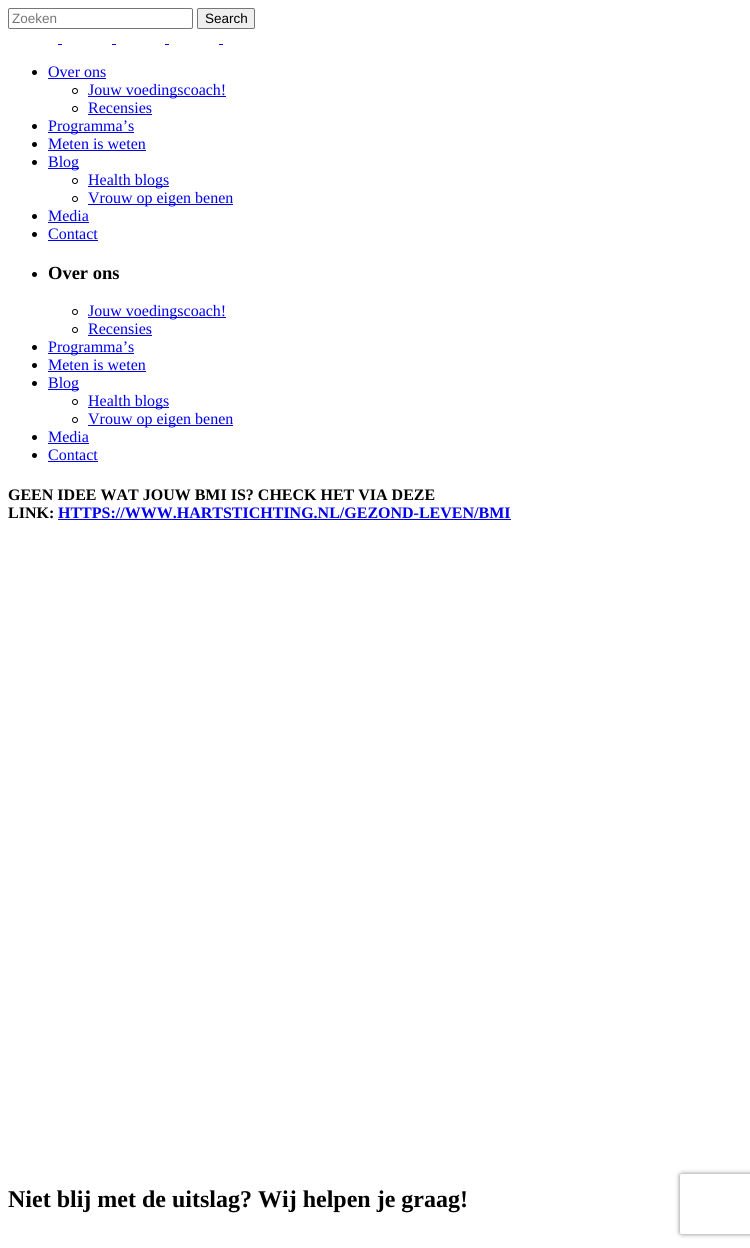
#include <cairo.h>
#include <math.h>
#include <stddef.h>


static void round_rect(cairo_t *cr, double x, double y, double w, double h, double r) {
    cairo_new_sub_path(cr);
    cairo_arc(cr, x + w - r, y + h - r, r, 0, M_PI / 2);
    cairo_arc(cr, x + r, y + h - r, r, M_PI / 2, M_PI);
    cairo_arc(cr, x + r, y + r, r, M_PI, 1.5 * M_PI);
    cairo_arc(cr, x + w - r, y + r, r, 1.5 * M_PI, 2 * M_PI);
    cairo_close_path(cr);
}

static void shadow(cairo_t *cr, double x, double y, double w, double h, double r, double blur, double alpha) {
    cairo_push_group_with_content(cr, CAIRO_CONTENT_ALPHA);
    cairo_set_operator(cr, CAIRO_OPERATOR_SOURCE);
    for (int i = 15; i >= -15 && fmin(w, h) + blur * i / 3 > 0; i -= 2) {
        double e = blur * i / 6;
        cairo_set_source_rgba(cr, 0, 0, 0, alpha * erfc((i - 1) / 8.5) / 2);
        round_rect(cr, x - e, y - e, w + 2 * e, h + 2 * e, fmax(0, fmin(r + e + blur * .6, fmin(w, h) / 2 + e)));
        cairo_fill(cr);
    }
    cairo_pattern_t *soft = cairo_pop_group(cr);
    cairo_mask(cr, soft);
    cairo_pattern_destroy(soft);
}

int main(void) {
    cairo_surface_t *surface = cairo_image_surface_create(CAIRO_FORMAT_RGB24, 750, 1248);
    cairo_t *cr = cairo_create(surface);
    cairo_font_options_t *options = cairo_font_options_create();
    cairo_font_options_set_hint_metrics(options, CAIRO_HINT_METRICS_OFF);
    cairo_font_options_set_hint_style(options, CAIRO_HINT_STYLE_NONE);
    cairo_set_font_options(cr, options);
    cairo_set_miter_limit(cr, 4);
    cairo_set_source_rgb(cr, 1, 1, 1);
    cairo_paint(cr);
    round_rect(cr, 8.5, 8.5, 184, 20, 1.5);
    cairo_set_source_rgb(cr, 0.463, 0.463, 0.463);
    cairo_set_line_width(cr, 1);
    cairo_stroke(cr);
    cairo_select_font_face(cr, "Liberation Sans", CAIRO_FONT_SLANT_NORMAL, CAIRO_FONT_WEIGHT_NORMAL);
    cairo_set_font_size(cr, 13.5);
    cairo_set_source_rgb(cr, 0.459, 0.459, 0.459);
    cairo_move_to(cr, 12, 23);
    cairo_show_text(cr, "Zoeken");
    cairo_set_source_rgb(cr, 0.937, 0.937, 0.937);
    round_rect(cr, 197.5, 8.5, 57, 20, 1.5);
    cairo_fill_preserve(cr);
    cairo_set_source_rgb(cr, 0.463, 0.463, 0.463);
    cairo_stroke(cr);
    cairo_set_source_rgb(cr, 0, 0, 0);
    cairo_move_to(cr, 205, 23);
    cairo_show_text(cr, "Search");
    cairo_set_source_rgb(cr, 0, 0, 0.933);
    cairo_rectangle(cr, 58, 44, 4, 1);
    cairo_fill(cr);
    cairo_rectangle(cr, 112, 44, 4, 1);
    cairo_fill(cr);
    cairo_rectangle(cr, 165, 44, 4, 1);
    cairo_fill(cr);
    cairo_rectangle(cr, 219, 44, 4, 1);
    cairo_fill(cr);
    cairo_set_source_rgb(cr, 0, 0, 0);
    cairo_arc(cr, 34.5, 72.5, 2.5, 0, 2 * M_PI);
    cairo_fill(cr);
    cairo_select_font_face(cr, "Liberation Serif", CAIRO_FONT_SLANT_NORMAL, CAIRO_FONT_WEIGHT_NORMAL);
    cairo_set_font_size(cr, 16);
    cairo_set_source_rgb(cr, 0, 0, 0.933);
    cairo_move_to(cr, 48, 77);
    cairo_show_text(cr, "Over ons");
    cairo_rectangle(cr, 48, 78, 58, 1);
    cairo_fill(cr);
    cairo_arc(cr, 75, 91, 2.5, 0, 2 * M_PI);
    cairo_set_source_rgb(cr, 0, 0, 0);
    cairo_stroke(cr);
    cairo_set_source_rgb(cr, 0, 0, 0.933);
    cairo_rectangle(cr, 88, 96, 138, 1);
    cairo_fill(cr);
    cairo_move_to(cr, 88, 95);
    cairo_show_text(cr, "Jouw voedingscoach!");
    cairo_new_path(cr);
    cairo_arc(cr, 75, 109, 2.5, 0, 2 * M_PI);
    cairo_set_source_rgb(cr, 0, 0, 0);
    cairo_stroke(cr);
    cairo_set_source_rgb(cr, 0, 0, 0.933);
    cairo_move_to(cr, 88, 113);
    cairo_show_text(cr, "Recensies");
    cairo_rectangle(cr, 88, 114, 64, 1);
    cairo_fill(cr);
    cairo_set_source_rgb(cr, 0, 0, 0);
    cairo_arc(cr, 34.5, 126.5, 2.5, 0, 2 * M_PI);
    cairo_fill(cr);
    cairo_set_source_rgb(cr, 0, 0, 0.933);
    cairo_rectangle(cr, 48, 132, 86, 1);
    cairo_fill(cr);
    cairo_move_to(cr, 48, 131);
    cairo_show_text(cr, "Programma’s");
    cairo_set_source_rgb(cr, 0, 0, 0);
    cairo_new_path(cr);
    cairo_arc(cr, 34.5, 144.5, 2.5, 0, 2 * M_PI);
    cairo_fill(cr);
    cairo_set_source_rgb(cr, 0, 0, 0.933);
    cairo_move_to(cr, 48, 149);
    cairo_show_text(cr, "Meten is weten");
    cairo_rectangle(cr, 48, 150, 98, 1);
    cairo_fill(cr);
    cairo_set_source_rgb(cr, 0, 0, 0);
    cairo_arc(cr, 34.5, 162.5, 2.5, 0, 2 * M_PI);
    cairo_fill(cr);
    cairo_set_source_rgb(cr, 0, 0, 0.933);
    cairo_rectangle(cr, 48, 168, 31, 1);
    cairo_fill(cr);
    cairo_move_to(cr, 48, 167);
    cairo_show_text(cr, "Blog");
    cairo_new_path(cr);
    cairo_arc(cr, 75, 181, 2.5, 0, 2 * M_PI);
    cairo_set_source_rgb(cr, 0, 0, 0);
    cairo_stroke(cr);
    cairo_set_source_rgb(cr, 0, 0, 0.933);
    cairo_rectangle(cr, 88, 186, 81, 1);
    cairo_fill(cr);
    cairo_move_to(cr, 88, 185);
    cairo_show_text(cr, "Health blogs");
    cairo_new_path(cr);
    cairo_arc(cr, 75, 199, 2.5, 0, 2 * M_PI);
    cairo_set_source_rgb(cr, 0, 0, 0);
    cairo_stroke(cr);
    cairo_set_source_rgb(cr, 0, 0, 0.933);
    cairo_rectangle(cr, 88, 204, 145, 1);
    cairo_fill(cr);
    cairo_move_to(cr, 88, 203);
    cairo_show_text(cr, "Vrouw op eigen benen");
    cairo_set_source_rgb(cr, 0, 0, 0);
    cairo_new_path(cr);
    cairo_arc(cr, 34.5, 216.5, 2.5, 0, 2 * M_PI);
    cairo_fill(cr);
    cairo_set_source_rgb(cr, 0, 0, 0.933);
    cairo_move_to(cr, 48, 221);
    cairo_show_text(cr, "Media");
    cairo_rectangle(cr, 48, 222, 41, 1);
    cairo_fill(cr);
    cairo_set_source_rgb(cr, 0, 0, 0);
    cairo_arc(cr, 34.5, 234.5, 2.5, 0, 2 * M_PI);
    cairo_fill(cr);
    cairo_set_source_rgb(cr, 0, 0, 0.933);
    cairo_move_to(cr, 48, 239);
    cairo_show_text(cr, "Contact");
    cairo_rectangle(cr, 48, 240, 50, 1);
    cairo_fill(cr);
    cairo_set_source_rgb(cr, 0, 0, 0);
    cairo_arc(cr, 34.5, 274.5, 2.5, 0, 2 * M_PI);
    cairo_fill(cr);
    cairo_select_font_face(cr, "Liberation Serif", CAIRO_FONT_SLANT_NORMAL, CAIRO_FONT_WEIGHT_BOLD);
    cairo_set_font_size(cr, 18.5);
    cairo_move_to(cr, 48, 279);
    cairo_show_text(cr, "Over ons");
    cairo_new_path(cr);
    cairo_arc(cr, 75, 312, 2.5, 0, 2 * M_PI);
    cairo_stroke(cr);
    cairo_set_source_rgb(cr, 0, 0, 0.933);
    cairo_rectangle(cr, 88, 317, 138, 1);
    cairo_fill(cr);
    cairo_select_font_face(cr, "Liberation Serif", CAIRO_FONT_SLANT_NORMAL, CAIRO_FONT_WEIGHT_NORMAL);
    cairo_set_font_size(cr, 16);
    cairo_move_to(cr, 88, 316);
    cairo_show_text(cr, "Jouw voedingscoach!");
    cairo_new_path(cr);
    cairo_arc(cr, 75, 330, 2.5, 0, 2 * M_PI);
    cairo_set_source_rgb(cr, 0, 0, 0);
    cairo_stroke(cr);
    cairo_set_source_rgb(cr, 0, 0, 0.933);
    cairo_move_to(cr, 88, 334);
    cairo_show_text(cr, "Recensies");
    cairo_rectangle(cr, 88, 335, 64, 1);
    cairo_fill(cr);
    cairo_set_source_rgb(cr, 0, 0, 0);
    cairo_arc(cr, 34.5, 347.5, 2.5, 0, 2 * M_PI);
    cairo_fill(cr);
    cairo_set_source_rgb(cr, 0, 0, 0.933);
    cairo_rectangle(cr, 48, 353, 86, 1);
    cairo_fill(cr);
    cairo_move_to(cr, 48, 352);
    cairo_show_text(cr, "Programma’s");
    cairo_set_source_rgb(cr, 0, 0, 0);
    cairo_new_path(cr);
    cairo_arc(cr, 34.5, 365.5, 2.5, 0, 2 * M_PI);
    cairo_fill(cr);
    cairo_set_source_rgb(cr, 0, 0, 0.933);
    cairo_move_to(cr, 48, 370);
    cairo_show_text(cr, "Meten is weten");
    cairo_rectangle(cr, 48, 371, 98, 1);
    cairo_fill(cr);
    cairo_set_source_rgb(cr, 0, 0, 0);
    cairo_arc(cr, 34.5, 383.5, 2.5, 0, 2 * M_PI);
    cairo_fill(cr);
    cairo_set_source_rgb(cr, 0, 0, 0.933);
    cairo_rectangle(cr, 48, 389, 31, 1);
    cairo_fill(cr);
    cairo_move_to(cr, 48, 388);
    cairo_show_text(cr, "Blog");
    cairo_new_path(cr);
    cairo_arc(cr, 75, 402, 2.5, 0, 2 * M_PI);
    cairo_set_source_rgb(cr, 0, 0, 0);
    cairo_stroke(cr);
    cairo_set_source_rgb(cr, 0, 0, 0.933);
    cairo_rectangle(cr, 88, 407, 81, 1);
    cairo_fill(cr);
    cairo_move_to(cr, 88, 406);
    cairo_show_text(cr, "Health blogs");
    cairo_new_path(cr);
    cairo_arc(cr, 75, 420, 2.5, 0, 2 * M_PI);
    cairo_set_source_rgb(cr, 0, 0, 0);
    cairo_stroke(cr);
    cairo_set_source_rgb(cr, 0, 0, 0.933);
    cairo_rectangle(cr, 88, 425, 145, 1);
    cairo_fill(cr);
    cairo_move_to(cr, 88, 424);
    cairo_show_text(cr, "Vrouw op eigen benen");
    cairo_set_source_rgb(cr, 0, 0, 0);
    cairo_new_path(cr);
    cairo_arc(cr, 34.5, 437.5, 2.5, 0, 2 * M_PI);
    cairo_fill(cr);
    cairo_set_source_rgb(cr, 0, 0, 0.933);
    cairo_move_to(cr, 48, 442);
    cairo_show_text(cr, "Media");
    cairo_rectangle(cr, 48, 443, 41, 1);
    cairo_fill(cr);
    cairo_set_source_rgb(cr, 0, 0, 0);
    cairo_arc(cr, 34.5, 455.5, 2.5, 0, 2 * M_PI);
    cairo_fill(cr);
    cairo_set_source_rgb(cr, 0, 0, 0.933);
    cairo_move_to(cr, 48, 460);
    cairo_show_text(cr, "Contact");
    cairo_rectangle(cr, 48, 461, 50, 1);
    cairo_fill(cr);
    cairo_select_font_face(cr, "Liberation Serif", CAIRO_FONT_SLANT_NORMAL, CAIRO_FONT_WEIGHT_BOLD);
    cairo_set_source_rgb(cr, 0, 0, 0);
    cairo_move_to(cr, 8, 500);
    cairo_show_text(cr, "GEEN IDEE WAT JOUW BMI IS? CHECK HET VIA DEZE");
    cairo_move_to(cr, 8, 518);
    cairo_show_text(cr, "LINK:");
    cairo_set_source_rgb(cr, 0, 0, 0.933);
    cairo_move_to(cr, 58, 518);
    cairo_show_text(cr, "HTTPS://WWW.HARTSTICHTING.NL/GEZOND-LEVEN/BMI");
    cairo_rectangle(cr, 58, 519, 453, 1);
    cairo_fill(cr);
    cairo_set_font_size(cr, 24);
    cairo_set_source_rgb(cr, 0, 0, 0);
    cairo_move_to(cr, 8, 1207);
    cairo_show_text(cr, "Niet blij met de uitslag? Wij helpen je graag!");
    cairo_save(cr);
    cairo_set_fill_rule(cr, CAIRO_FILL_RULE_EVEN_ODD);
    cairo_new_path(cr);
    cairo_move_to(cr, 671, 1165);
    cairo_line_to(cr, 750, 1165);
    cairo_line_to(cr, 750, 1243);
    cairo_line_to(cr, 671, 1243);
    cairo_close_path(cr);
    cairo_move_to(cr, 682, 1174);
    cairo_line_to(cr, 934, 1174);
    cairo_curve_to(cr, 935, 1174, 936, 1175, 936, 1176);
    cairo_line_to(cr, 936, 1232);
    cairo_curve_to(cr, 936, 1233, 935, 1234, 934, 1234);
    cairo_line_to(cr, 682, 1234);
    cairo_curve_to(cr, 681, 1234, 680, 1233, 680, 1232);
    cairo_line_to(cr, 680, 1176);
    cairo_curve_to(cr, 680, 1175, 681, 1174, 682, 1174);
    cairo_close_path(cr);
    cairo_clip(cr);
    cairo_set_source_rgb(cr, 0.502, 0.502, 0.502);
    shadow(cr, 680, 1174, 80, 60, 2, 2.5, 1);
    cairo_restore(cr);
    cairo_surface_write_to_png(surface, "page.png");
    cairo_font_options_destroy(options);
    cairo_destroy(cr);
    cairo_surface_destroy(surface);
    return 0;
}
